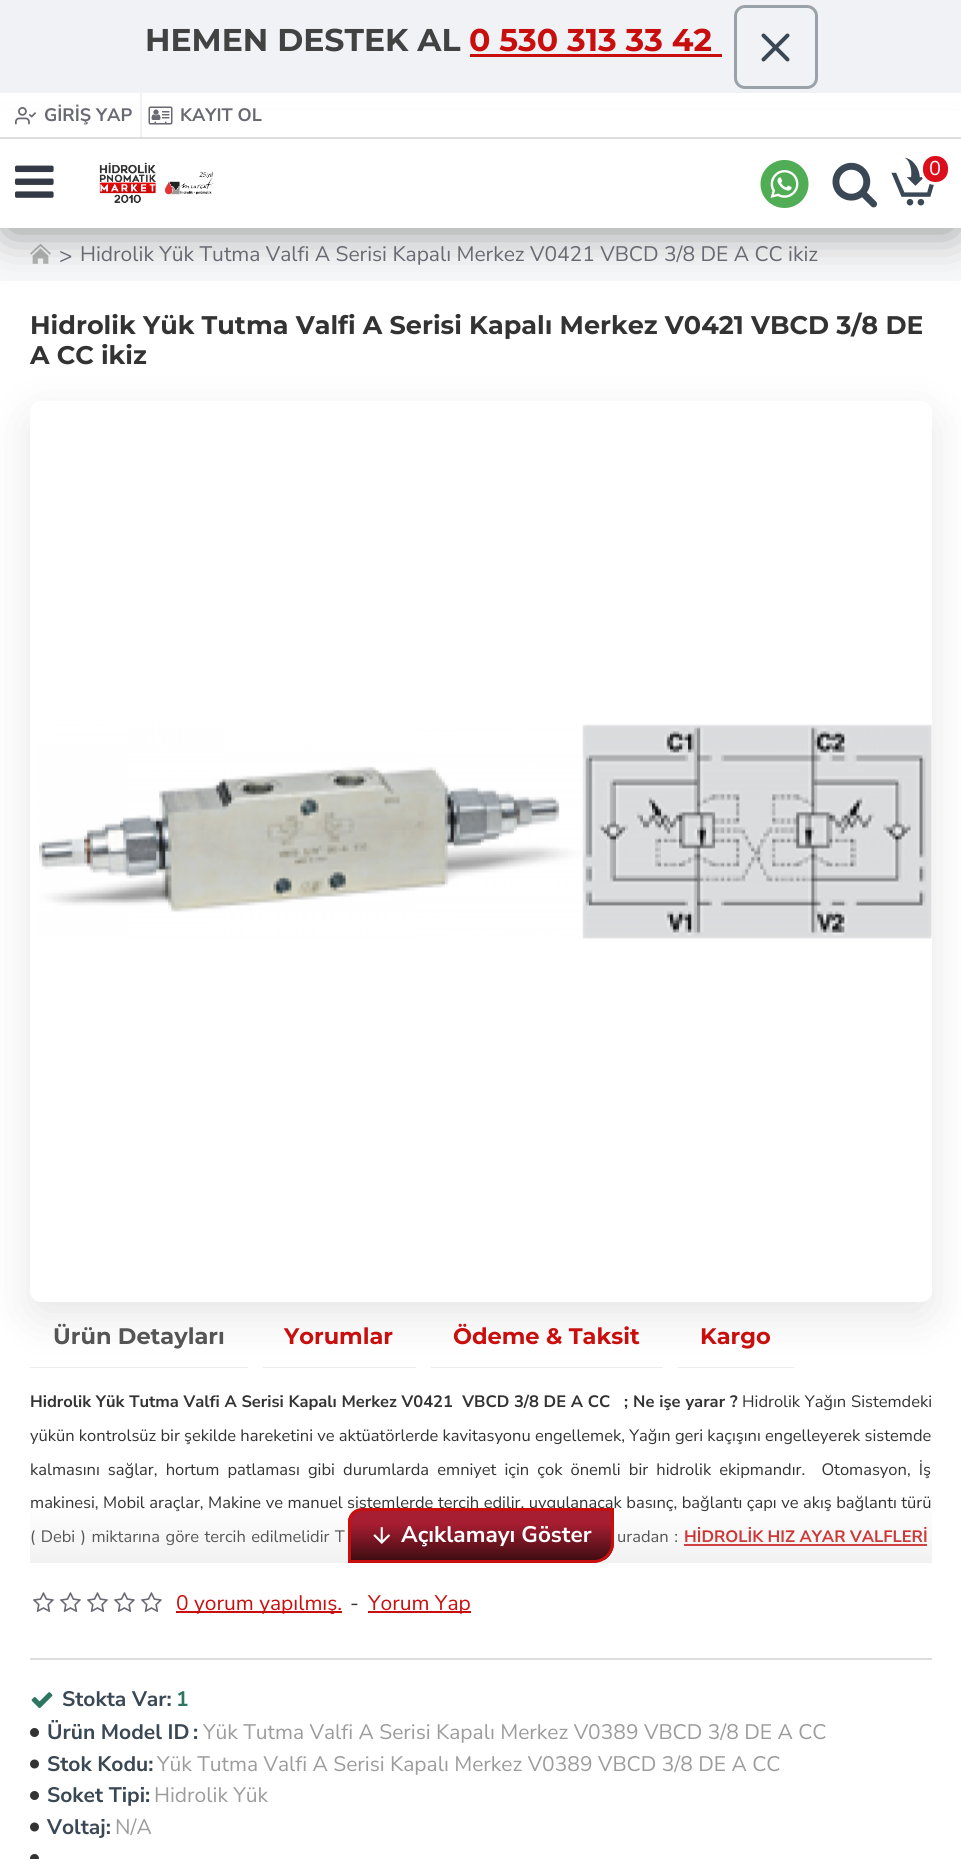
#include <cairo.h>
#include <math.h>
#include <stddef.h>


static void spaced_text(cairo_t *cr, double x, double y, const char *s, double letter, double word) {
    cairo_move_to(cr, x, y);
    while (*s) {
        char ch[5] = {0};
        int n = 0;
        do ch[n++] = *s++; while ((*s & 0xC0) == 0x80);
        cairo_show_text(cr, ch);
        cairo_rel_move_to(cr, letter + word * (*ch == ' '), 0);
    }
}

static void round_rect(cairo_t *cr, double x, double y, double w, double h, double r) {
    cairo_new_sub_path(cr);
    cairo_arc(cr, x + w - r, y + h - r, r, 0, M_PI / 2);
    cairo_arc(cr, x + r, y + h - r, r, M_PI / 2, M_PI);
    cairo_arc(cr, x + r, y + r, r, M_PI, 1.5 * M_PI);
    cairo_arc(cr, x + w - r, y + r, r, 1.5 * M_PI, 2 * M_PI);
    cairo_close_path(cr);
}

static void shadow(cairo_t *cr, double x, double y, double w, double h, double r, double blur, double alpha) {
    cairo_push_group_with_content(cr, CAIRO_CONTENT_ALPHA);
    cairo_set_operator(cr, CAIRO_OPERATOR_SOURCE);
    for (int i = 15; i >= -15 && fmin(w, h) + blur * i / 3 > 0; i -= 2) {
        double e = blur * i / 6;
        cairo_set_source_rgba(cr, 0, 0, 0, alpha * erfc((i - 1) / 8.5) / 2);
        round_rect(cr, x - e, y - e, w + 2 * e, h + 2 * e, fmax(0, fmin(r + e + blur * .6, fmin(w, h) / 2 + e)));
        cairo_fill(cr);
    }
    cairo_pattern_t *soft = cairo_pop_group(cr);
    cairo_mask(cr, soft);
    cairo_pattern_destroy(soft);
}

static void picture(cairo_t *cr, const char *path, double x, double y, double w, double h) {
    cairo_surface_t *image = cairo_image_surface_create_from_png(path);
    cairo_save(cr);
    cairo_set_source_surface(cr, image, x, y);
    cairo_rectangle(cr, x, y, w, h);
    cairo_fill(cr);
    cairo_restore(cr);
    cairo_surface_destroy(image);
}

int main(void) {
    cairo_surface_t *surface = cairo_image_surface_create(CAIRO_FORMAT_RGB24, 961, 1859);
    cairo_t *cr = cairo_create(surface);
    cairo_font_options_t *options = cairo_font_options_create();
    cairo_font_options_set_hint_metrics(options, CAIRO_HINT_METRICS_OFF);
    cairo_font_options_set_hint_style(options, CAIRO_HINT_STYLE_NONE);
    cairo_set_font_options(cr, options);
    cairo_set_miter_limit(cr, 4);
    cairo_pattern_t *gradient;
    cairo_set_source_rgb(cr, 1, 1, 1);
    cairo_paint(cr);
    cairo_set_source_rgb(cr, 0.941, 0.949, 0.961);
    cairo_rectangle(cr, 0, 0, 961, 93);
    cairo_fill(cr);
    cairo_select_font_face(cr, "Montserrat", CAIRO_FONT_SLANT_NORMAL, CAIRO_FONT_WEIGHT_BOLD);
    cairo_set_font_size(cr, 31.5);
    cairo_set_source_rgb(cr, 0.259, 0.259, 0.259);
    cairo_move_to(cr, 145, 51);
    cairo_show_text(cr, "HEMEN DESTEK AL");
    cairo_set_source_rgb(cr, 0.788, 0.055, 0.055);
    cairo_move_to(cr, 469, 51);
    cairo_show_text(cr, "0 530 313 33 42");
    cairo_rectangle(cr, 470, 54, 252, 3);
    cairo_fill(cr);
    round_rect(cr, 735.5, 6.5, 81, 81, 9.5);
    cairo_set_source_rgb(cr, 0.604, 0.635, 0.663);
    cairo_set_line_width(cr, 3);
    cairo_stroke(cr);
    picture(cr, "img1.png", 761, 33, 29, 29);
    cairo_set_source_rgba(cr, 0.941, 0.949, 0.961, 0.54);
    cairo_rectangle(cr, 0, 228, 961, 53);
    cairo_fill(cr);
    picture(cr, "img9.png", 30, 243, 21, 21);
    cairo_set_source_rgb(cr, 0, 0, 0);
    shadow(cr, 8, 156, 946, 75, 0, 22.5, 0.43);
    cairo_set_source_rgb(cr, 1, 1, 1);
    cairo_rectangle(cr, 0, 111, 961, 26);
    cairo_fill(cr);
    cairo_set_source_rgb(cr, 0.867, 0.867, 0.867);
    cairo_rectangle(cr, 0, 137, 961, 2);
    cairo_fill(cr);
    picture(cr, "img2.png", 15, 107, 21, 18);
    cairo_select_font_face(cr, "Nunito Sans", CAIRO_FONT_SLANT_NORMAL, CAIRO_FONT_WEIGHT_BOLD);
    cairo_set_font_size(cr, 18);
    cairo_set_source_rgb(cr, 0.412, 0.412, 0.451);
    cairo_move_to(cr, 44, 121);
    cairo_show_text(cr, "GİRİŞ YAP");
    cairo_set_source_rgb(cr, 0.941, 0.949, 0.961);
    cairo_rectangle(cr, 140, 93, 2, 44);
    cairo_fill(cr);
    picture(cr, "img3.png", 148, 106, 25, 19);
    cairo_set_source_rgb(cr, 0.412, 0.412, 0.451);
    cairo_move_to(cr, 180, 121);
    cairo_show_text(cr, "KAYIT OL");
    cairo_set_source_rgb(cr, 1, 1, 1);
    cairo_rectangle(cr, 0, 139, 961, 89);
    cairo_fill(cr);
    picture(cr, "img4.png", 99, 162, 114, 42);
    picture(cr, "img5.png", 15, 165, 39, 33);
    picture(cr, "img6.png", 760, 160, 49, 48);
    picture(cr, "img7.png", 832, 162, 45, 46);
    picture(cr, "img8.png", 891, 157, 43, 49);
    cairo_set_source_rgb(cr, 0.867, 0.055, 0.11);
    round_rect(cr, 921.5, 154.5, 28, 29, 13.5);
    cairo_fill_preserve(cr);
    cairo_set_source_rgb(cr, 1, 1, 1);
    cairo_stroke(cr);
    cairo_select_font_face(cr, "Nunito Sans", CAIRO_FONT_SLANT_NORMAL, CAIRO_FONT_WEIGHT_NORMAL);
    cairo_set_font_size(cr, 20);
    cairo_move_to(cr, 929, 175);
    cairo_show_text(cr, "0");
    cairo_set_font_size(cr, 22.5);
    cairo_set_source_rgb(cr, 0.412, 0.412, 0.451);
    cairo_move_to(cr, 59, 263);
    cairo_show_text(cr, ">");
    cairo_set_font_size(cr, 21);
    cairo_move_to(cr, 80, 261);
    cairo_show_text(cr, "Hidrolik Yük Tutma Valfi A Serisi Kapalı Merkez V0421 VBCD 3/8 DE A CC ikiz");
    cairo_select_font_face(cr, "Montserrat", CAIRO_FONT_SLANT_NORMAL, CAIRO_FONT_WEIGHT_BOLD);
    cairo_set_font_size(cr, 25.5);
    cairo_set_source_rgb(cr, 0.2, 0.2, 0.2);
    cairo_move_to(cr, 30, 334);
    cairo_show_text(cr, "Hidrolik Yük Tutma Valfi A Serisi Kapalı Merkez V0421 VBCD 3/8 DE");
    cairo_move_to(cr, 30, 364);
    cairo_show_text(cr, "A CC ikiz");
    cairo_save(cr);
    cairo_set_fill_rule(cr, CAIRO_FILL_RULE_EVEN_ODD);
    cairo_new_path(cr);
    cairo_move_to(cr, 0, 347);
    cairo_line_to(cr, 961, 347);
    cairo_line_to(cr, 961, 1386);
    cairo_line_to(cr, 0, 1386);
    cairo_close_path(cr);
    cairo_move_to(cr, 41, 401);
    cairo_line_to(cr, 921, 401);
    cairo_curve_to(cr, 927, 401, 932, 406, 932, 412);
    cairo_line_to(cr, 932, 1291);
    cairo_curve_to(cr, 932, 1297, 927, 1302, 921, 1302);
    cairo_line_to(cr, 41, 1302);
    cairo_curve_to(cr, 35, 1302, 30, 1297, 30, 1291);
    cairo_line_to(cr, 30, 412);
    cairo_curve_to(cr, 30, 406, 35, 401, 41, 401);
    cairo_close_path(cr);
    cairo_clip(cr);
    cairo_set_source_rgb(cr, 0, 0, 0);
    shadow(cr, 30, 416, 902, 901, 11, 22.5, 0.1);
    cairo_restore(cr);
    picture(cr, "img10.png", 39, 724, 893, 215);
    cairo_set_source_rgb(cr, 0.929, 0.929, 0.929);
    cairo_rectangle(cr, 30, 1367, 218, 1);
    cairo_fill(cr);
    cairo_set_font_size(cr, 22.5);
    cairo_set_source_rgb(cr, 0.333, 0.333, 0.333);
    cairo_move_to(cr, 53, 1344);
    cairo_show_text(cr, "Ürün Detayları");
    cairo_set_source_rgb(cr, 0.929, 0.929, 0.929);
    cairo_rectangle(cr, 263, 1367, 153, 1);
    cairo_fill(cr);
    cairo_set_source_rgb(cr, 0.788, 0.055, 0.055);
    cairo_move_to(cr, 284, 1344);
    cairo_show_text(cr, "Yorumlar");
    cairo_set_source_rgb(cr, 0.929, 0.929, 0.929);
    cairo_rectangle(cr, 431, 1367, 232, 1);
    cairo_fill(cr);
    cairo_set_source_rgb(cr, 0.788, 0.055, 0.055);
    cairo_move_to(cr, 453, 1344);
    cairo_show_text(cr, "Ödeme & Taksit");
    cairo_set_source_rgb(cr, 0.929, 0.929, 0.929);
    cairo_rectangle(cr, 678, 1367, 116, 1);
    cairo_fill(cr);
    cairo_set_source_rgb(cr, 0.788, 0.055, 0.055);
    cairo_move_to(cr, 700, 1344);
    cairo_show_text(cr, "Kargo");
    cairo_select_font_face(cr, "Nunito Sans", CAIRO_FONT_SLANT_NORMAL, CAIRO_FONT_WEIGHT_BOLD);
    cairo_set_font_size(cr, 16.5);
    cairo_set_source_rgb(cr, 0.2, 0.2, 0.2);
    spaced_text(cr, 30, 1407, "Hidrolik Yük Tutma Valfi A Serisi Kapalı Merkez V0421  VBCD 3/8 DE A CC", 0, 0.25);
    spaced_text(cr, 624, 1407, "; Ne işe yarar ?", 0, 0.5);
    cairo_select_font_face(cr, "Nunito Sans", CAIRO_FONT_SLANT_NORMAL, CAIRO_FONT_WEIGHT_NORMAL);
    spaced_text(cr, 742, 1407, "Hidrolik Yağın Sistemdeki", 0, 0.5);
    cairo_move_to(cr, 30, 1441);
    cairo_show_text(cr, "yükün kontrolsüz bir şekilde hareketini ve aktüatörlerde kavitasyonu engellemek, Yağın geri kaçışını engelleyerek sistemde");
    spaced_text(cr, 30, 1475, "kalmasını sağlar, hortum patlaması gibi durumlarda emniyet için çok önemli bir hidrolik ekipmandır.  Otomasyon, İş", 0, 3.9);
    spaced_text(cr, 30, 1508, "makinesi, Mobil araçlar, Makine ve manuel sistemlerde tercih edilir, uygulanacak basınç, bağlantı çapı ve akış bağlantı türü", 0, 0.25);
    spaced_text(cr, 30, 1542, "( Debi ) miktarına göre tercih edilmelidir T", 0, 1.25);
    spaced_text(cr, 617, 1542, "uradan :", 0, 1.25);
    cairo_select_font_face(cr, "Nunito Sans", CAIRO_FONT_SLANT_NORMAL, CAIRO_FONT_WEIGHT_BOLD);
    cairo_set_source_rgb(cr, 0.788, 0.055, 0.055);
    cairo_move_to(cr, 684, 1542);
    cairo_show_text(cr, "HİDROLİK HIZ AYAR VALFLERİ");
    cairo_rectangle(cr, 684, 1544, 243, 2);
    cairo_fill(cr);
    gradient = cairo_pattern_create_linear(481, 1503, 481, 1563);
    cairo_pattern_add_color_stop_rgba(gradient, 0, 0.859, 0.859, 0.859, 0);
    cairo_pattern_add_color_stop_rgba(gradient, 1, 0.859, 0.859, 0.859, 0.37);
    cairo_set_source(cr, gradient);
    cairo_pattern_destroy(gradient);
    cairo_rectangle(cr, 30, 1506, 902, 57);
    cairo_fill(cr);
    cairo_save(cr);
    cairo_new_path(cr);
    cairo_move_to(cr, 362, 1508);
    cairo_line_to(cr, 614, 1508);
    cairo_line_to(cr, 614, 1543);
    cairo_curve_to(cr, 614, 1554, 605, 1563, 594, 1563);
    cairo_line_to(cr, 348, 1563);
    cairo_line_to(cr, 348, 1522);
    cairo_curve_to(cr, 348, 1514.5, 354.5, 1508, 362, 1508);
    cairo_close_path(cr);
    cairo_clip(cr);
    gradient = cairo_pattern_create_linear(481, 1560, 481, 1511);
    cairo_pattern_add_color_stop_rgba(gradient, 0, 0.247, 0.051, 0.071, 1);
    cairo_pattern_add_color_stop_rgba(gradient, 0.74, 0.655, 0.114, 0.192, 1);
    cairo_set_source(cr, gradient);
    cairo_pattern_destroy(gradient);
    cairo_rectangle(cr, 348, 1511, 266, 49);
    cairo_fill(cr);
    cairo_restore(cr);
    cairo_new_path(cr);
    cairo_move_to(cr, 362, 1509.5);
    cairo_line_to(cr, 612.5, 1509.5);
    cairo_line_to(cr, 612.5, 1543);
    cairo_curve_to(cr, 612.5, 1553, 604, 1561.5, 594, 1561.5);
    cairo_line_to(cr, 349.5, 1561.5);
    cairo_line_to(cr, 349.5, 1522);
    cairo_curve_to(cr, 349.5, 1515, 355, 1509.5, 362, 1509.5);
    cairo_close_path(cr);
    cairo_set_source_rgb(cr, 0.788, 0.055, 0.055);
    cairo_stroke(cr);
    picture(cr, "img11.png", 373, 1527, 18, 17);
    cairo_set_font_size(cr, 22.5);
    cairo_set_source_rgb(cr, 1, 1, 1);
    cairo_move_to(cr, 401, 1542);
    cairo_show_text(cr, "Açıklamayı Göster");
    cairo_set_source_rgb(cr, 0.867, 0.867, 0.867);
    cairo_rectangle(cr, 30, 1658, 902, 2);
    cairo_fill(cr);
    picture(cr, "img12.png", 33, 1592, 21, 20);
    picture(cr, "img12.png", 60, 1592, 21, 20);
    picture(cr, "img12.png", 87, 1592, 21, 20);
    picture(cr, "img12.png", 114, 1592, 21, 20);
    picture(cr, "img12.png", 141, 1592, 21, 20);
    cairo_set_source_rgb(cr, 0.788, 0.055, 0.055);
    cairo_rectangle(cr, 176, 1611, 166, 2);
    cairo_fill(cr);
    cairo_select_font_face(cr, "Nunito Sans", CAIRO_FONT_SLANT_NORMAL, CAIRO_FONT_WEIGHT_NORMAL);
    cairo_set_font_size(cr, 21);
    cairo_move_to(cr, 176, 1610);
    cairo_show_text(cr, "0 yorum yapılmış.");
    cairo_set_source_rgb(cr, 0.2, 0.2, 0.2);
    cairo_move_to(cr, 350, 1610);
    cairo_show_text(cr, "-");
    cairo_set_source_rgb(cr, 0.788, 0.055, 0.055);
    cairo_rectangle(cr, 368, 1611, 103, 2);
    cairo_fill(cr);
    cairo_move_to(cr, 368, 1610);
    cairo_show_text(cr, "Yorum Yap");
    picture(cr, "img13.png", 31, 1692, 22, 17);
    cairo_select_font_face(cr, "Nunito Sans", CAIRO_FONT_SLANT_NORMAL, CAIRO_FONT_WEIGHT_BOLD);
    cairo_set_source_rgb(cr, 0.227, 0.278, 0.329);
    cairo_move_to(cr, 62, 1706);
    cairo_show_text(cr, "Stokta Var:");
    cairo_set_source_rgb(cr, 0.176, 0.463, 0.384);
    cairo_move_to(cr, 176, 1706);
    cairo_show_text(cr, "1");
    picture(cr, "img14.png", 30, 1728, 9, 9);
    cairo_set_source_rgb(cr, 0.227, 0.278, 0.329);
    cairo_move_to(cr, 47, 1739);
    cairo_show_text(cr, "Ürün Model ID");
    cairo_move_to(cr, 193, 1739);
    cairo_show_text(cr, ":");
    cairo_select_font_face(cr, "Nunito Sans", CAIRO_FONT_SLANT_NORMAL, CAIRO_FONT_WEIGHT_NORMAL);
    cairo_set_source_rgb(cr, 0.612, 0.612, 0.612);
    cairo_move_to(cr, 203, 1739);
    cairo_show_text(cr, "Yük Tutma Valfi A Serisi Kapalı Merkez V0389 VBCD 3/8 DE A CC");
    picture(cr, "img15.png", 30, 1759, 9, 10);
    cairo_select_font_face(cr, "Nunito Sans", CAIRO_FONT_SLANT_NORMAL, CAIRO_FONT_WEIGHT_BOLD);
    cairo_set_source_rgb(cr, 0.227, 0.278, 0.329);
    cairo_move_to(cr, 47, 1771);
    cairo_show_text(cr, "Stok Kodu:");
    cairo_select_font_face(cr, "Nunito Sans", CAIRO_FONT_SLANT_NORMAL, CAIRO_FONT_WEIGHT_NORMAL);
    cairo_set_source_rgb(cr, 0.612, 0.612, 0.612);
    cairo_move_to(cr, 157, 1771);
    cairo_show_text(cr, "Yük Tutma Valfi A Serisi Kapalı Merkez V0389 VBCD 3/8 DE A CC");
    picture(cr, "img14.png", 30, 1791, 9, 9);
    cairo_select_font_face(cr, "Nunito Sans", CAIRO_FONT_SLANT_NORMAL, CAIRO_FONT_WEIGHT_BOLD);
    cairo_set_source_rgb(cr, 0.227, 0.278, 0.329);
    cairo_move_to(cr, 47, 1802);
    cairo_show_text(cr, "Soket Tipi:");
    cairo_select_font_face(cr, "Nunito Sans", CAIRO_FONT_SLANT_NORMAL, CAIRO_FONT_WEIGHT_NORMAL);
    cairo_set_source_rgb(cr, 0.612, 0.612, 0.612);
    cairo_move_to(cr, 154, 1802);
    cairo_show_text(cr, "Hidrolik Yük");
    picture(cr, "img15.png", 30, 1822, 9, 10);
    cairo_select_font_face(cr, "Nunito Sans", CAIRO_FONT_SLANT_NORMAL, CAIRO_FONT_WEIGHT_BOLD);
    cairo_set_source_rgb(cr, 0.227, 0.278, 0.329);
    cairo_move_to(cr, 47, 1834);
    cairo_show_text(cr, "Voltaj:");
    cairo_select_font_face(cr, "Nunito Sans", CAIRO_FONT_SLANT_NORMAL, CAIRO_FONT_WEIGHT_NORMAL);
    cairo_set_source_rgb(cr, 0.612, 0.612, 0.612);
    cairo_move_to(cr, 115, 1834);
    cairo_show_text(cr, "N/A");
    picture(cr, "img16.png", 30, 1854, 9, 5);
    cairo_surface_write_to_png(surface, "page.png");
    cairo_font_options_destroy(options);
    cairo_destroy(cr);
    cairo_surface_destroy(surface);
    return 0;
}
